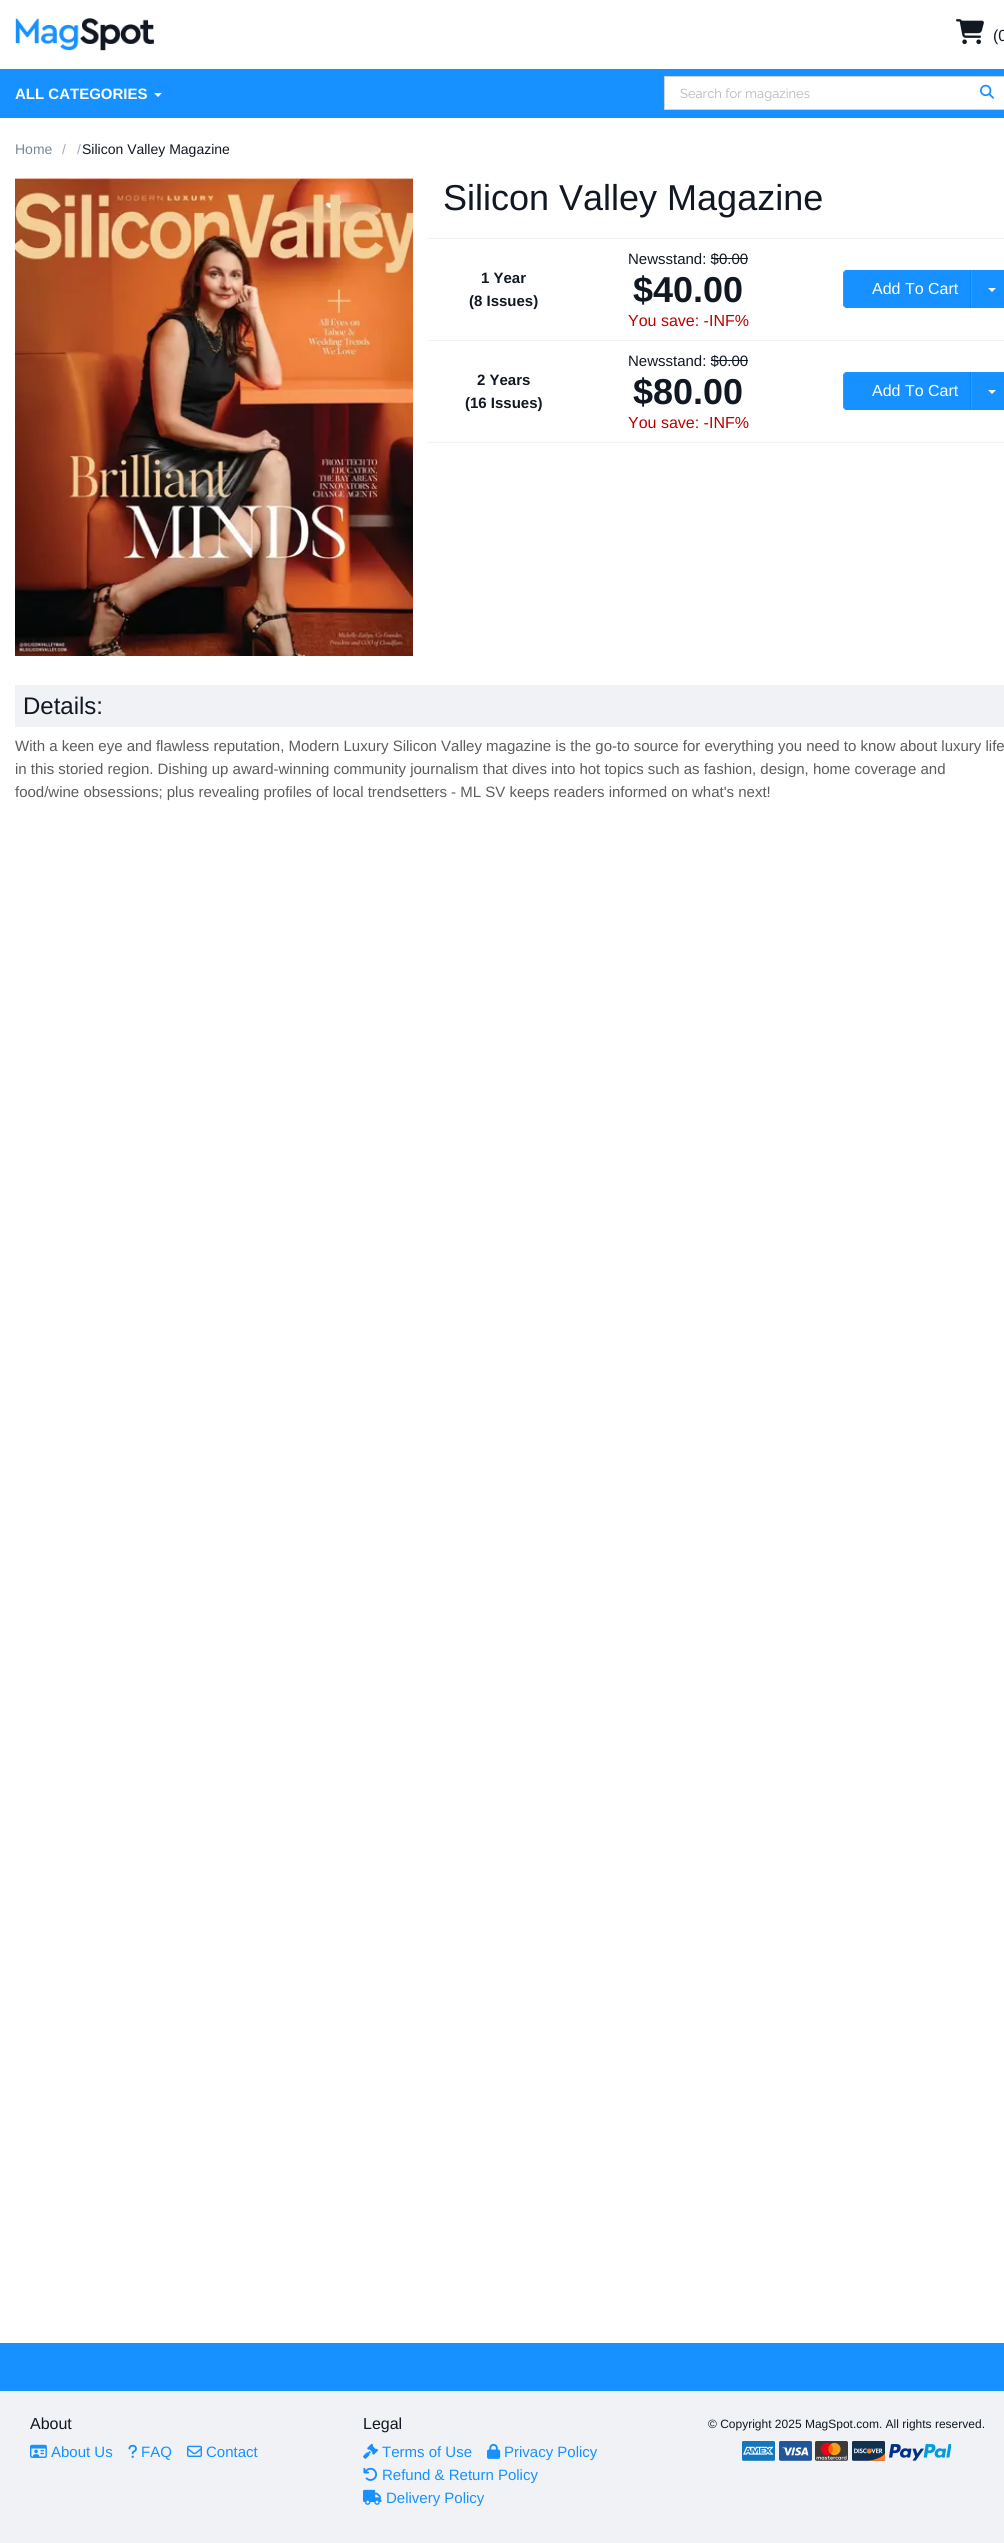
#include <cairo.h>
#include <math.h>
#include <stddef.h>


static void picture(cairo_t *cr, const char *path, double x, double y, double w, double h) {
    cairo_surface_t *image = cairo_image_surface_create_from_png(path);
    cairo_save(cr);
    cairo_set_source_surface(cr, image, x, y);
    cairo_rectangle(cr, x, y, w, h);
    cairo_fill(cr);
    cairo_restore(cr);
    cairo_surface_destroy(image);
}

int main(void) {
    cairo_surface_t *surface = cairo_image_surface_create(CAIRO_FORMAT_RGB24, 1004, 2543);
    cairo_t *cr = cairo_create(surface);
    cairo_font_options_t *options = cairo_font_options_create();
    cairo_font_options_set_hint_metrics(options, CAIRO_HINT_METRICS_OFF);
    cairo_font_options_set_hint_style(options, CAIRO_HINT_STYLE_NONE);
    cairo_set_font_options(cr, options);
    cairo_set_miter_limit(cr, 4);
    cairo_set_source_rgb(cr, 1, 1, 1);
    cairo_paint(cr);
    picture(cr, "img1.png", 15, 18, 139, 33);
    picture(cr, "img2.png", 956, 19, 28, 26);
    cairo_select_font_face(cr, "Liberation Sans", CAIRO_FONT_SLANT_NORMAL, CAIRO_FONT_WEIGHT_NORMAL);
    cairo_set_font_size(cr, 16);
    cairo_set_source_rgb(cr, 0.067, 0.094, 0.133);
    cairo_move_to(cr, 993, 41);
    cairo_show_text(cr, "(0");
    cairo_set_source_rgb(cr, 0.086, 0.569, 1);
    cairo_rectangle(cr, 0, 69, 1004, 49);
    cairo_fill(cr);
    cairo_select_font_face(cr, "Liberation Sans", CAIRO_FONT_SLANT_NORMAL, CAIRO_FONT_WEIGHT_BOLD);
    cairo_set_font_size(cr, 15);
    cairo_set_source_rgb(cr, 1, 1, 1);
    cairo_move_to(cr, 15, 99);
    cairo_show_text(cr, "ALL CATEGORIES");
    cairo_new_path(cr);
    cairo_move_to(cr, 154, 93);
    cairo_line_to(cr, 162, 93);
    cairo_line_to(cr, 158, 97);
    cairo_close_path(cr);
    cairo_fill(cr);
    cairo_rectangle(cr, 664.5, 76.5, 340, 33);
    cairo_fill_preserve(cr);
    cairo_set_source_rgb(cr, 0.82, 0.82, 0.82);
    cairo_set_line_width(cr, 1);
    cairo_stroke(cr);
    cairo_select_font_face(cr, "Raleway", CAIRO_FONT_SLANT_NORMAL, CAIRO_FONT_WEIGHT_NORMAL);
    cairo_set_font_size(cr, 13);
    cairo_set_source_rgb(cr, 0.714, 0.714, 0.714);
    cairo_move_to(cr, 680, 98);
    cairo_show_text(cr, "Search for magazines");
    picture(cr, "img3.png", 980, 84, 14, 15);
    cairo_select_font_face(cr, "Liberation Sans", CAIRO_FONT_SLANT_NORMAL, CAIRO_FONT_WEIGHT_NORMAL);
    cairo_set_font_size(cr, 14);
    cairo_set_source_rgb(cr, 0.475, 0.529, 0.604);
    cairo_move_to(cr, 15, 154);
    cairo_show_text(cr, "Home");
    cairo_set_source_rgb(cr, 0.635, 0.671, 0.725);
    cairo_move_to(cr, 62, 154);
    cairo_show_text(cr, "/");
    cairo_move_to(cr, 77, 154);
    cairo_show_text(cr, "/");
    cairo_set_source_rgb(cr, 0.067, 0.094, 0.133);
    cairo_move_to(cr, 82, 154);
    cairo_show_text(cr, "Silicon Valley Magazine");
    picture(cr, "img4.png", 15, 178, 398, 478);
    cairo_set_font_size(cr, 36);
    cairo_move_to(cr, 443, 210);
    cairo_show_text(cr, "Silicon Valley Magazine");
    cairo_set_source_rgb(cr, 0.941, 0.949, 0.961);
    cairo_rectangle(cr, 428, 238, 576, 1);
    cairo_fill(cr);
    cairo_rectangle(cr, 428, 340, 576, 1);
    cairo_fill(cr);
    cairo_select_font_face(cr, "Liberation Sans", CAIRO_FONT_SLANT_NORMAL, CAIRO_FONT_WEIGHT_BOLD);
    cairo_set_font_size(cr, 15);
    cairo_set_source_rgb(cr, 0.067, 0.094, 0.133);
    cairo_move_to(cr, 481, 283);
    cairo_show_text(cr, "1 Year");
    cairo_move_to(cr, 469, 306);
    cairo_show_text(cr, "(8 Issues)");
    cairo_select_font_face(cr, "Liberation Sans", CAIRO_FONT_SLANT_NORMAL, CAIRO_FONT_WEIGHT_NORMAL);
    cairo_move_to(cr, 628, 264);
    cairo_show_text(cr, "Newsstand: $0.00");
    cairo_rectangle(cr, 711, 258, 37, 1);
    cairo_fill(cr);
    cairo_select_font_face(cr, "Liberation Sans", CAIRO_FONT_SLANT_NORMAL, CAIRO_FONT_WEIGHT_BOLD);
    cairo_set_font_size(cr, 36);
    cairo_move_to(cr, 633, 302);
    cairo_show_text(cr, "$40.00");
    cairo_select_font_face(cr, "Liberation Sans", CAIRO_FONT_SLANT_NORMAL, CAIRO_FONT_WEIGHT_NORMAL);
    cairo_set_font_size(cr, 16);
    cairo_set_source_rgb(cr, 0.737, 0, 0);
    cairo_move_to(cr, 628, 326);
    cairo_show_text(cr, "You save: -INF%");
    cairo_set_source_rgb(cr, 0.086, 0.569, 1);
    cairo_new_path(cr);
    cairo_move_to(cr, 847, 270);
    cairo_line_to(cr, 971, 270);
    cairo_line_to(cr, 971, 308);
    cairo_line_to(cr, 847, 308);
    cairo_curve_to(cr, 845, 308, 843, 306, 843, 304);
    cairo_line_to(cr, 843, 274);
    cairo_curve_to(cr, 843, 272, 845, 270, 847, 270);
    cairo_close_path(cr);
    cairo_fill(cr);
    cairo_new_path(cr);
    cairo_move_to(cr, 847, 270);
    cairo_line_to(cr, 844, 271);
    cairo_line_to(cr, 845, 272);
    cairo_line_to(cr, 847, 271);
    cairo_line_to(cr, 970, 271);
    cairo_line_to(cr, 971, 270);
    cairo_close_path(cr);
    cairo_fill(cr);
    cairo_new_path(cr);
    cairo_move_to(cr, 971, 308);
    cairo_line_to(cr, 970, 307);
    cairo_line_to(cr, 847, 307);
    cairo_line_to(cr, 845, 306);
    cairo_line_to(cr, 844, 307);
    cairo_line_to(cr, 847, 308);
    cairo_close_path(cr);
    cairo_fill(cr);
    cairo_set_source_rgb(cr, 0.176, 0.612, 1);
    cairo_new_path(cr);
    cairo_move_to(cr, 843, 274);
    cairo_line_to(cr, 843, 304);
    cairo_curve_to(cr, 843, 305, 843.5, 306, 844, 307);
    cairo_line_to(cr, 845, 306);
    cairo_curve_to(cr, 844, 306, 844, 305, 844, 304);
    cairo_line_to(cr, 844, 274);
    cairo_curve_to(cr, 844, 273, 844, 272, 845, 272);
    cairo_line_to(cr, 844, 271);
    cairo_curve_to(cr, 843.5, 272, 843, 273, 843, 274);
    cairo_close_path(cr);
    cairo_fill(cr);
    cairo_set_source_rgb(cr, 1, 1, 1);
    cairo_move_to(cr, 872, 294);
    cairo_show_text(cr, "Add To Cart");
    cairo_set_source_rgb(cr, 0, 0.525, 0.996);
    cairo_rectangle(cr, 970, 270, 1, 38);
    cairo_fill(cr);
    cairo_set_source_rgb(cr, 0.086, 0.569, 1);
    cairo_rectangle(cr, 971, 270, 33, 38);
    cairo_fill(cr);
    cairo_set_source_rgb(cr, 0.176, 0.612, 1);
    cairo_new_path(cr);
    cairo_move_to(cr, 971, 270);
    cairo_line_to(cr, 971, 308);
    cairo_line_to(cr, 972, 307);
    cairo_line_to(cr, 972, 271);
    cairo_close_path(cr);
    cairo_fill(cr);
    cairo_set_source_rgb(cr, 1, 1, 1);
    cairo_new_path(cr);
    cairo_move_to(cr, 988, 288);
    cairo_line_to(cr, 996, 288);
    cairo_line_to(cr, 992, 292);
    cairo_close_path(cr);
    cairo_fill(cr);
    cairo_set_source_rgb(cr, 0.941, 0.949, 0.961);
    cairo_rectangle(cr, 428, 442, 576, 1);
    cairo_fill(cr);
    cairo_select_font_face(cr, "Liberation Sans", CAIRO_FONT_SLANT_NORMAL, CAIRO_FONT_WEIGHT_BOLD);
    cairo_set_font_size(cr, 15);
    cairo_set_source_rgb(cr, 0.067, 0.094, 0.133);
    cairo_move_to(cr, 477, 385);
    cairo_show_text(cr, "2 Years");
    cairo_move_to(cr, 465, 408);
    cairo_show_text(cr, "(16 Issues)");
    cairo_select_font_face(cr, "Liberation Sans", CAIRO_FONT_SLANT_NORMAL, CAIRO_FONT_WEIGHT_NORMAL);
    cairo_move_to(cr, 628, 366);
    cairo_show_text(cr, "Newsstand: $0.00");
    cairo_rectangle(cr, 711, 360, 37, 1);
    cairo_fill(cr);
    cairo_select_font_face(cr, "Liberation Sans", CAIRO_FONT_SLANT_NORMAL, CAIRO_FONT_WEIGHT_BOLD);
    cairo_set_font_size(cr, 36);
    cairo_move_to(cr, 633, 404);
    cairo_show_text(cr, "$80.00");
    cairo_select_font_face(cr, "Liberation Sans", CAIRO_FONT_SLANT_NORMAL, CAIRO_FONT_WEIGHT_NORMAL);
    cairo_set_font_size(cr, 16);
    cairo_set_source_rgb(cr, 0.737, 0, 0);
    cairo_move_to(cr, 628, 428);
    cairo_show_text(cr, "You save: -INF%");
    cairo_set_source_rgb(cr, 0.086, 0.569, 1);
    cairo_new_path(cr);
    cairo_move_to(cr, 847, 372);
    cairo_line_to(cr, 971, 372);
    cairo_line_to(cr, 971, 410);
    cairo_line_to(cr, 847, 410);
    cairo_curve_to(cr, 845, 410, 843, 408, 843, 406);
    cairo_line_to(cr, 843, 376);
    cairo_curve_to(cr, 843, 374, 845, 372, 847, 372);
    cairo_close_path(cr);
    cairo_fill(cr);
    cairo_new_path(cr);
    cairo_move_to(cr, 847, 372);
    cairo_line_to(cr, 844, 373);
    cairo_line_to(cr, 845, 374);
    cairo_line_to(cr, 847, 373);
    cairo_line_to(cr, 970, 373);
    cairo_line_to(cr, 971, 372);
    cairo_close_path(cr);
    cairo_fill(cr);
    cairo_new_path(cr);
    cairo_move_to(cr, 971, 410);
    cairo_line_to(cr, 970, 409);
    cairo_line_to(cr, 847, 409);
    cairo_line_to(cr, 845, 408);
    cairo_line_to(cr, 844, 409);
    cairo_line_to(cr, 847, 410);
    cairo_close_path(cr);
    cairo_fill(cr);
    cairo_set_source_rgb(cr, 0.176, 0.612, 1);
    cairo_new_path(cr);
    cairo_move_to(cr, 843, 376);
    cairo_line_to(cr, 843, 406);
    cairo_curve_to(cr, 843, 407, 843.5, 408, 844, 409);
    cairo_line_to(cr, 845, 408);
    cairo_curve_to(cr, 844, 408, 844, 407, 844, 406);
    cairo_line_to(cr, 844, 376);
    cairo_curve_to(cr, 844, 375, 844, 374, 845, 374);
    cairo_line_to(cr, 844, 373);
    cairo_curve_to(cr, 843.5, 374, 843, 375, 843, 376);
    cairo_close_path(cr);
    cairo_fill(cr);
    cairo_set_source_rgb(cr, 1, 1, 1);
    cairo_move_to(cr, 872, 396);
    cairo_show_text(cr, "Add To Cart");
    cairo_set_source_rgb(cr, 0, 0.525, 0.996);
    cairo_rectangle(cr, 970, 372, 1, 38);
    cairo_fill(cr);
    cairo_set_source_rgb(cr, 0.086, 0.569, 1);
    cairo_rectangle(cr, 971, 372, 33, 38);
    cairo_fill(cr);
    cairo_set_source_rgb(cr, 0.176, 0.612, 1);
    cairo_new_path(cr);
    cairo_move_to(cr, 971, 372);
    cairo_line_to(cr, 971, 410);
    cairo_line_to(cr, 972, 409);
    cairo_line_to(cr, 972, 373);
    cairo_close_path(cr);
    cairo_fill(cr);
    cairo_set_source_rgb(cr, 1, 1, 1);
    cairo_new_path(cr);
    cairo_move_to(cr, 988, 390);
    cairo_line_to(cr, 996, 390);
    cairo_line_to(cr, 992, 394);
    cairo_close_path(cr);
    cairo_fill(cr);
    cairo_set_source_rgb(cr, 0.941, 0.949, 0.961);
    cairo_rectangle(cr, 15, 685, 989, 42);
    cairo_fill(cr);
    cairo_set_font_size(cr, 24);
    cairo_set_source_rgb(cr, 0.067, 0.094, 0.133);
    cairo_move_to(cr, 23, 714);
    cairo_show_text(cr, "Details:");
    cairo_set_font_size(cr, 15);
    cairo_set_source_rgb(cr, 0.361, 0.361, 0.361);
    cairo_move_to(cr, 15, 751);
    cairo_show_text(cr, "With a keen eye and flawless reputation, Modern Luxury Silicon Valley magazine is the go-to source for everything you need to know about luxury life");
    cairo_move_to(cr, 15, 774);
    cairo_show_text(cr, "in this storied region. Dishing up award-winning community journalism that dives into hot topics such as fashion, design, home coverage and");
    cairo_move_to(cr, 15, 797);
    cairo_show_text(cr, "food/wine obsessions; plus revealing profiles of local trendsetters - ML SV keeps readers informed on what's next!");
    cairo_set_source_rgb(cr, 0.941, 0.949, 0.961);
    cairo_rectangle(cr, 0, 2391, 1004, 152);
    cairo_fill(cr);
    cairo_set_source_rgb(cr, 0.086, 0.569, 1);
    cairo_rectangle(cr, 0, 2343, 1004, 48);
    cairo_fill(cr);
    cairo_set_font_size(cr, 16);
    cairo_set_source_rgb(cr, 0.067, 0.094, 0.133);
    cairo_move_to(cr, 30, 2429);
    cairo_show_text(cr, "About");
    picture(cr, "img5.png", 30, 2444, 17, 14);
    cairo_set_font_size(cr, 15);
    cairo_set_source_rgb(cr, 0.086, 0.569, 1);
    cairo_move_to(cr, 51, 2457);
    cairo_show_text(cr, "About Us");
    picture(cr, "img6.png", 128, 2444, 9, 14);
    cairo_move_to(cr, 141, 2457);
    cairo_show_text(cr, "FAQ");
    picture(cr, "img7.png", 187, 2445, 15, 12);
    cairo_move_to(cr, 206, 2457);
    cairo_show_text(cr, "Contact");
    cairo_set_font_size(cr, 16);
    cairo_set_source_rgb(cr, 0.067, 0.094, 0.133);
    cairo_move_to(cr, 363, 2429);
    cairo_show_text(cr, "Legal");
    picture(cr, "img8.png", 363, 2443, 15, 16);
    cairo_set_font_size(cr, 15);
    cairo_set_source_rgb(cr, 0.086, 0.569, 1);
    cairo_move_to(cr, 382, 2457);
    cairo_show_text(cr, "Terms of Use");
    picture(cr, "img9.png", 487, 2443, 14, 16);
    cairo_move_to(cr, 504, 2457);
    cairo_show_text(cr, "Privacy Policy");
    picture(cr, "img10.png", 363, 2467, 15, 14);
    cairo_move_to(cr, 382, 2480);
    cairo_show_text(cr, "Refund & Return Policy");
    picture(cr, "img11.png", 363, 2489, 19, 16);
    cairo_move_to(cr, 386, 2503);
    cairo_show_text(cr, "Delivery Policy");
    cairo_set_font_size(cr, 12);
    cairo_set_source_rgb(cr, 0.067, 0.094, 0.133);
    cairo_move_to(cr, 708, 2428);
    cairo_show_text(cr, "© Copyright 2025 MagSpot.com. All rights reserved.");
    picture(cr, "img12.png", 742, 2441, 33, 20);
    picture(cr, "img13.png", 779, 2441, 33, 20);
    picture(cr, "img14.png", 815, 2441, 33, 20);
    picture(cr, "img15.png", 852, 2441, 33, 20);
    picture(cr, "img16.png", 889, 2444, 62, 17);
    cairo_surface_write_to_png(surface, "page.png");
    cairo_font_options_destroy(options);
    cairo_destroy(cr);
    cairo_surface_destroy(surface);
    return 0;
}
